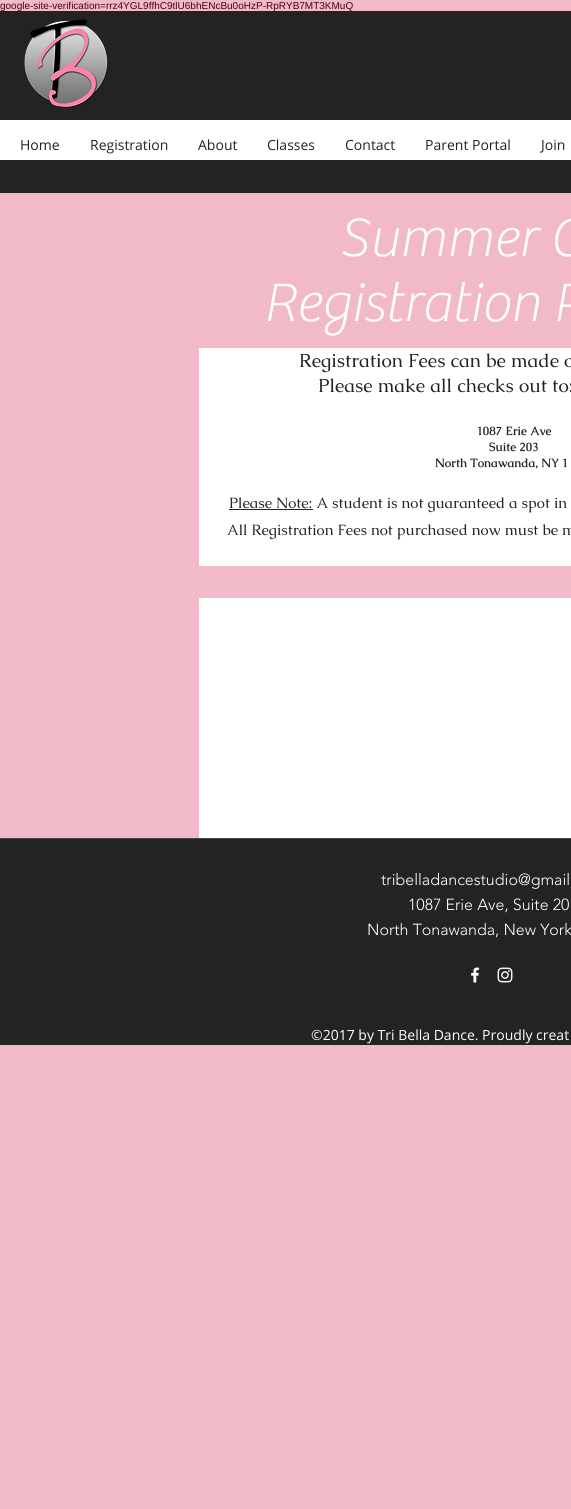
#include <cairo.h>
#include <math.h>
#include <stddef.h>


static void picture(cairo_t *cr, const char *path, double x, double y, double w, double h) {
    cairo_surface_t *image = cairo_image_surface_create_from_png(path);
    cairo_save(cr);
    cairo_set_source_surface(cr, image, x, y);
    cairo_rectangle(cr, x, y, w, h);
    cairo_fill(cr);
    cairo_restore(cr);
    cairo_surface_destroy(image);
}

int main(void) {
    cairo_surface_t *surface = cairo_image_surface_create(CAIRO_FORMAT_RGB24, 571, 1509);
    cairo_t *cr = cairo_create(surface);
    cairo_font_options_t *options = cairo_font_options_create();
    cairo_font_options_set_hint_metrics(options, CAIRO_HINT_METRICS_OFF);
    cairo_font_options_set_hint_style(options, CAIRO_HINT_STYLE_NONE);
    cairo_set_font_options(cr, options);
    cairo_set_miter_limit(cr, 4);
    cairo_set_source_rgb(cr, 0.949, 0.725, 0.784);
    cairo_paint(cr);
    cairo_select_font_face(cr, "Liberation Sans", CAIRO_FONT_SLANT_NORMAL, CAIRO_FONT_WEIGHT_NORMAL);
    cairo_set_font_size(cr, 10);
    cairo_set_source_rgb(cr, 0.251, 0.027, 0.082);
    cairo_move_to(cr, 0, 9);
    cairo_show_text(cr, "google-site-verification=rrz4YGL9ffhC9tlU6bhENcBu0oHzP-RpRYB7MT3KMuQ");
    cairo_set_source_rgb(cr, 0.137, 0.137, 0.137);
    cairo_rectangle(cr, 0, 11, 571, 182);
    cairo_fill(cr);
    picture(cr, "img1.png", 24, 19, 84, 89);
    cairo_set_source_rgb(cr, 1, 1, 1);
    cairo_rectangle(cr, 0, 120, 571, 40);
    cairo_fill(cr);
    cairo_select_font_face(cr, "Open Sans", CAIRO_FONT_SLANT_NORMAL, CAIRO_FONT_WEIGHT_NORMAL);
    cairo_set_font_size(cr, 14);
    cairo_set_source_rgb(cr, 0.137, 0.137, 0.137);
    cairo_move_to(cr, 20, 150);
    cairo_show_text(cr, "Home");
    cairo_move_to(cr, 90, 150);
    cairo_show_text(cr, "Registration");
    cairo_move_to(cr, 198, 150);
    cairo_show_text(cr, "About");
    cairo_move_to(cr, 267, 150);
    cairo_show_text(cr, "Classes");
    cairo_move_to(cr, 345, 150);
    cairo_show_text(cr, "Contact");
    cairo_move_to(cr, 425, 150);
    cairo_show_text(cr, "Parent Portal");
    cairo_move_to(cr, 541, 150);
    cairo_show_text(cr, "Join");
    cairo_select_font_face(cr, "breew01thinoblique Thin", CAIRO_FONT_SLANT_NORMAL, CAIRO_FONT_WEIGHT_NORMAL);
    cairo_set_font_size(cr, 56);
    cairo_set_source_rgb(cr, 1, 1, 1);
    cairo_move_to(cr, 339, 256);
    cairo_show_text(cr, "Summer C");
    cairo_move_to(cr, 263, 321);
    cairo_show_text(cr, "Registration P");
    cairo_rectangle(cr, 199, 348, 372, 218);
    cairo_fill(cr);
    cairo_select_font_face(cr, "Caudex", CAIRO_FONT_SLANT_NORMAL, CAIRO_FONT_WEIGHT_NORMAL);
    cairo_set_font_size(cr, 19);
    cairo_set_source_rgb(cr, 0.137, 0.137, 0.137);
    cairo_move_to(cr, 299, 367);
    cairo_show_text(cr, "Registration Fees can be made o");
    cairo_move_to(cr, 318, 392);
    cairo_show_text(cr, "Please make all checks out to:");
    cairo_select_font_face(cr, "Caudex", CAIRO_FONT_SLANT_NORMAL, CAIRO_FONT_WEIGHT_BOLD);
    cairo_set_font_size(cr, 12);
    cairo_move_to(cr, 477, 435);
    cairo_show_text(cr, "1087 Erie Ave");
    cairo_move_to(cr, 489, 451);
    cairo_show_text(cr, "Suite 203");
    cairo_move_to(cr, 435, 467);
    cairo_show_text(cr, "North Tonawanda, NY 1");
    cairo_rectangle(cr, 229, 509, 84, 1);
    cairo_fill(cr);
    cairo_select_font_face(cr, "Caudex", CAIRO_FONT_SLANT_NORMAL, CAIRO_FONT_WEIGHT_NORMAL);
    cairo_set_font_size(cr, 15);
    cairo_move_to(cr, 229, 508);
    cairo_show_text(cr, "Please Note: A student is not guaranteed a spot in");
    cairo_move_to(cr, 227, 535);
    cairo_show_text(cr, "All Registration Fees not purchased now must be m");
    cairo_set_source_rgb(cr, 1, 1, 1);
    cairo_rectangle(cr, 199, 598, 372, 240);
    cairo_fill(cr);
    cairo_set_source_rgb(cr, 0.137, 0.137, 0.137);
    cairo_rectangle(cr, 0, 839, 571, 206);
    cairo_fill(cr);
    cairo_set_source_rgb(cr, 0.267, 0.267, 0.267);
    cairo_rectangle(cr, 0, 838, 571, 1);
    cairo_fill(cr);
    cairo_select_font_face(cr, "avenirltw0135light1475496 Light", CAIRO_FONT_SLANT_NORMAL, CAIRO_FONT_WEIGHT_NORMAL);
    cairo_set_font_size(cr, 16);
    cairo_set_source_rgb(cr, 1, 1, 1);
    cairo_move_to(cr, 381, 885);
    cairo_show_text(cr, "tribelladancestudio@gmail");
    cairo_move_to(cr, 408, 910);
    cairo_show_text(cr, "1087 Erie Ave, Suite 20");
    cairo_move_to(cr, 367, 935);
    cairo_show_text(cr, "North Tonawanda, New York");
    picture(cr, "img2.png", 471, 967, 9, 16);
    picture(cr, "img3.png", 497, 967, 16, 16);
    cairo_select_font_face(cr, "Open Sans", CAIRO_FONT_SLANT_NORMAL, CAIRO_FONT_WEIGHT_NORMAL);
    cairo_set_font_size(cr, 14);
    cairo_move_to(cr, 311, 1040);
    cairo_show_text(cr, "©2017 by Tri Bella Dance. Proudly creat");
    cairo_surface_write_to_png(surface, "page.png");
    cairo_font_options_destroy(options);
    cairo_destroy(cr);
    cairo_surface_destroy(surface);
    return 0;
}
